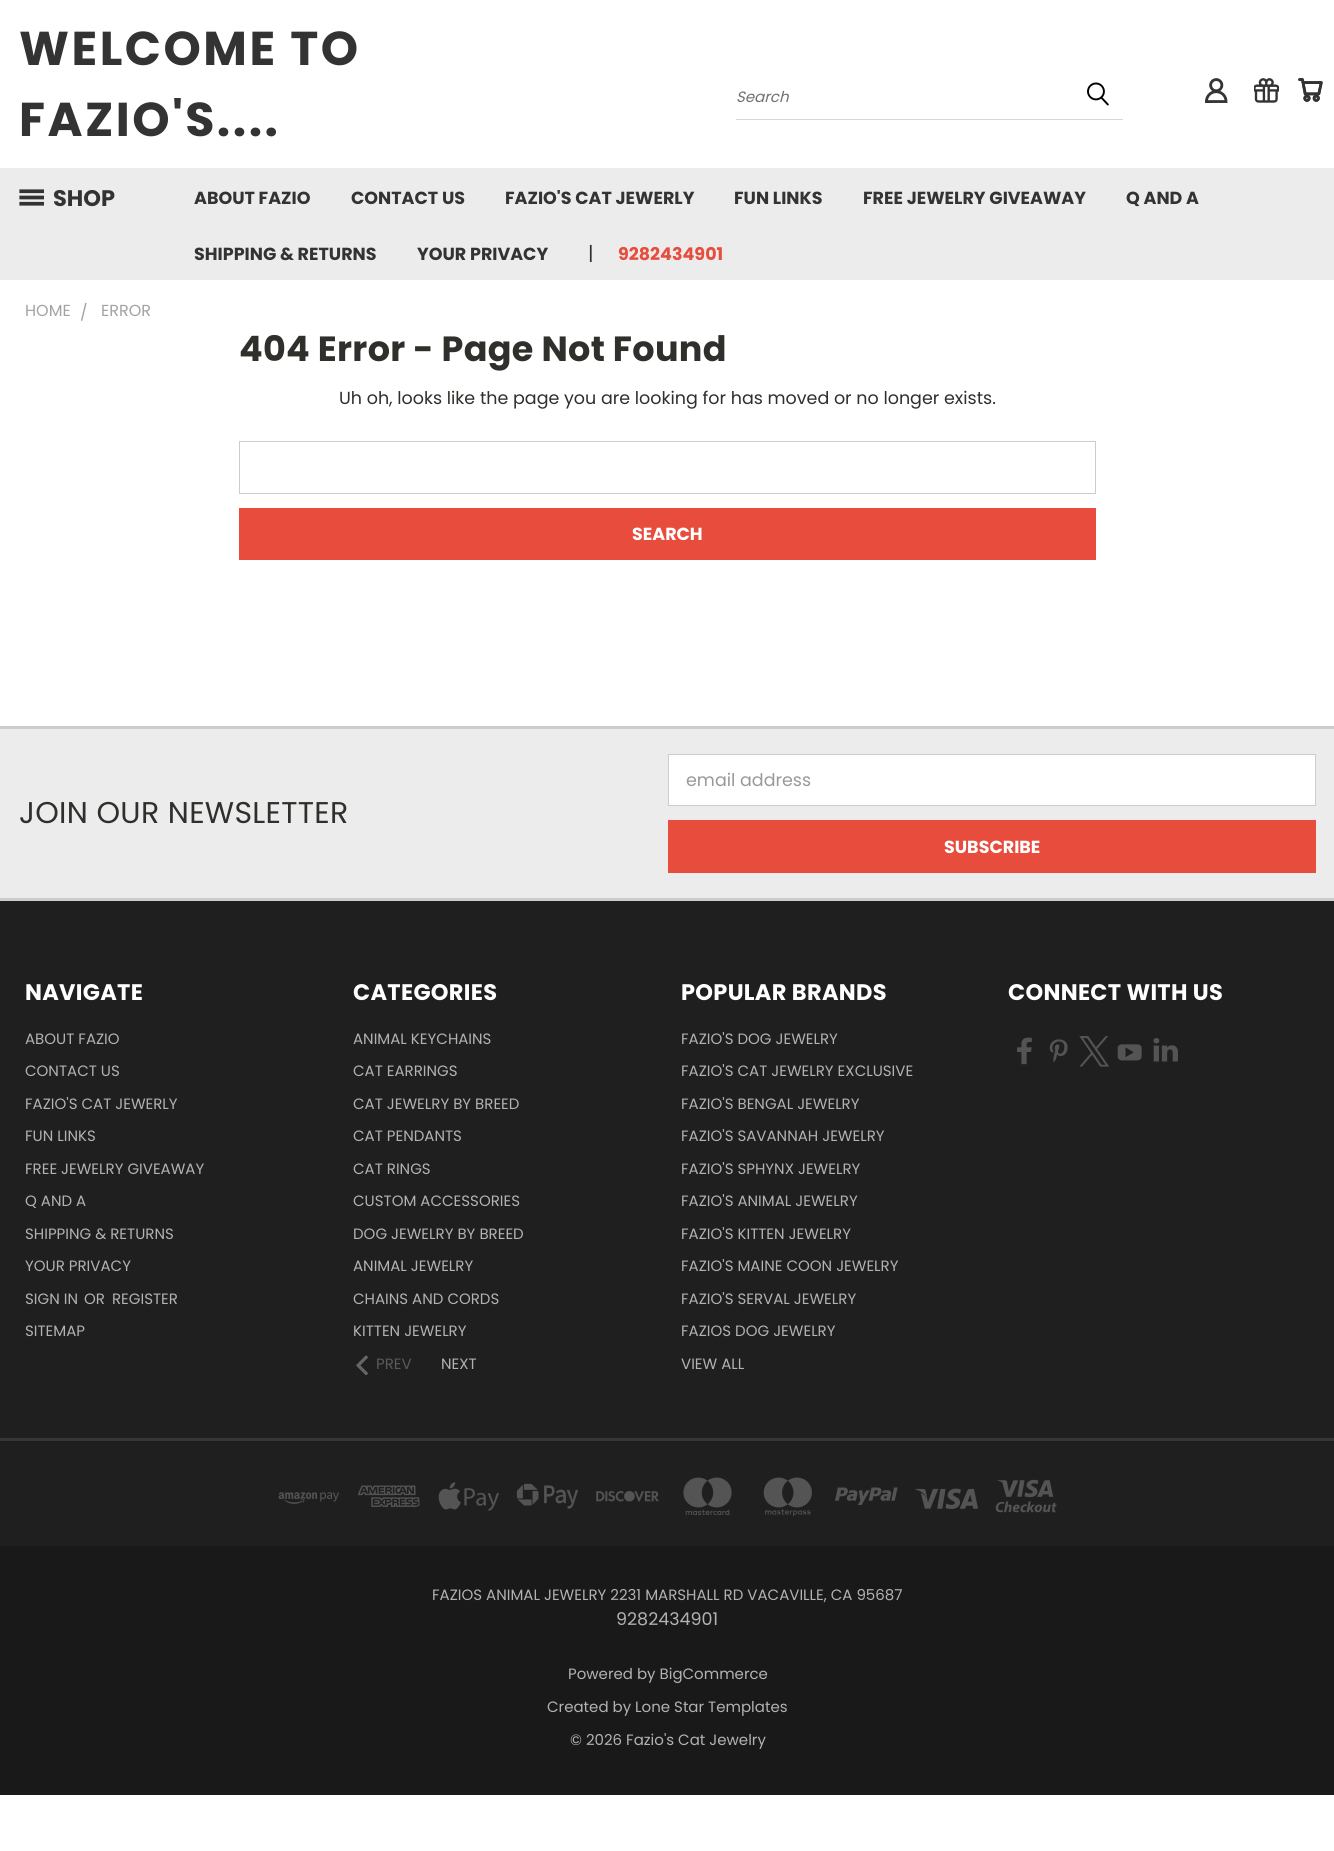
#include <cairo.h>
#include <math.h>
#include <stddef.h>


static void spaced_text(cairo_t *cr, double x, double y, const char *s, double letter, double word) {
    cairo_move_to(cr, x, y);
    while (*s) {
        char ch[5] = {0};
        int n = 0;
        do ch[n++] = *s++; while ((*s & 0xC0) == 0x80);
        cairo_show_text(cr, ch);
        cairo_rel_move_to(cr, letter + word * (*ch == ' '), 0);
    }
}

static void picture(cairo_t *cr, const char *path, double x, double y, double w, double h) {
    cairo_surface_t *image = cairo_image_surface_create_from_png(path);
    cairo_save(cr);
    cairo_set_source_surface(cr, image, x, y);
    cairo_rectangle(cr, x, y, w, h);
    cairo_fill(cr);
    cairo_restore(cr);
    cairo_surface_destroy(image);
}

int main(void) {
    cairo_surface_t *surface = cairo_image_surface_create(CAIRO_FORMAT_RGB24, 1334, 1851);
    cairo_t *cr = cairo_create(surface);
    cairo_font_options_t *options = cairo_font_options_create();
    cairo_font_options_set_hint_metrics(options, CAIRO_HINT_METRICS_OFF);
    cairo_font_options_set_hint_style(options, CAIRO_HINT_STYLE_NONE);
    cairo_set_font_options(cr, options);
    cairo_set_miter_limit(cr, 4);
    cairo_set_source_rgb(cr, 1, 1, 1);
    cairo_paint(cr);
    cairo_select_font_face(cr, "Poppins", CAIRO_FONT_SLANT_NORMAL, CAIRO_FONT_WEIGHT_BOLD);
    cairo_set_font_size(cr, 47.5);
    cairo_set_source_rgb(cr, 0.2, 0.2, 0.2);
    spaced_text(cr, 19, 65, "WELCOME TO", 2.5, 0);
    spaced_text(cr, 19, 136, "FAZIO'S....", 2.5, 0);
    cairo_set_source_rgb(cr, 0.843, 0.843, 0.843);
    cairo_rectangle(cr, 736, 119, 387, 1);
    cairo_fill(cr);
    cairo_select_font_face(cr, "Poppins", CAIRO_FONT_SLANT_ITALIC, CAIRO_FONT_WEIGHT_NORMAL);
    cairo_set_font_size(cr, 15);
    cairo_set_source_rgb(cr, 0.439, 0.439, 0.431);
    cairo_move_to(cr, 736, 102);
    cairo_show_text(cr, "Search");
    picture(cr, "img1.png", 1087, 82, 22, 24);
    picture(cr, "img2.png", 1205, 78, 23, 25);
    picture(cr, "img3.png", 1254, 78, 25, 25);
    picture(cr, "img4.png", 1298, 78, 25, 24);
    cairo_set_source_rgb(cr, 0.922, 0.922, 0.922);
    cairo_rectangle(cr, 0, 168, 1334, 112);
    cairo_fill(cr);
    picture(cr, "img5.png", 19, 189, 25, 17);
    cairo_select_font_face(cr, "Poppins", CAIRO_FONT_SLANT_NORMAL, CAIRO_FONT_WEIGHT_BOLD);
    cairo_set_font_size(cr, 22.5);
    cairo_set_source_rgb(cr, 0.2, 0.2, 0.2);
    cairo_move_to(cr, 53, 206);
    cairo_show_text(cr, "SHOP");
    cairo_set_font_size(cr, 17.5);
    cairo_move_to(cr, 194, 204);
    cairo_show_text(cr, "ABOUT FAZIO");
    cairo_move_to(cr, 351, 204);
    cairo_show_text(cr, "CONTACT US");
    cairo_move_to(cr, 505, 204);
    cairo_show_text(cr, "FAZIO'S CAT JEWERLY");
    cairo_move_to(cr, 734, 204);
    cairo_show_text(cr, "FUN LINKS");
    cairo_move_to(cr, 863, 204);
    cairo_show_text(cr, "FREE JEWELRY GIVEAWAY");
    cairo_move_to(cr, 1126, 204);
    cairo_show_text(cr, "Q AND A");
    cairo_move_to(cr, 194, 260);
    cairo_show_text(cr, "SHIPPING & RETURNS");
    cairo_move_to(cr, 417, 260);
    cairo_show_text(cr, "YOUR PRIVACY");
    cairo_select_font_face(cr, "Poppins", CAIRO_FONT_SLANT_NORMAL, CAIRO_FONT_WEIGHT_NORMAL);
    cairo_set_font_size(cr, 19);
    cairo_set_source_rgb(cr, 0.184, 0.184, 0.169);
    cairo_move_to(cr, 588, 260);
    cairo_show_text(cr, "|");
    cairo_select_font_face(cr, "Poppins", CAIRO_FONT_SLANT_NORMAL, CAIRO_FONT_WEIGHT_BOLD);
    cairo_set_font_size(cr, 17.5);
    cairo_set_source_rgb(cr, 0.906, 0.298, 0.235);
    cairo_move_to(cr, 618, 260);
    cairo_show_text(cr, "9282434901");
    cairo_select_font_face(cr, "Poppins", CAIRO_FONT_SLANT_NORMAL, CAIRO_FONT_WEIGHT_NORMAL);
    cairo_set_font_size(cr, 16);
    cairo_set_source_rgb(cr, 0.635, 0.635, 0.635);
    cairo_move_to(cr, 25, 316);
    cairo_show_text(cr, "HOME");
    cairo_move_to(cr, 80, 318);
    cairo_show_text(cr, "/");
    cairo_move_to(cr, 101, 316);
    cairo_show_text(cr, "ERROR");
    cairo_select_font_face(cr, "Poppins", CAIRO_FONT_SLANT_NORMAL, CAIRO_FONT_WEIGHT_BOLD);
    cairo_set_font_size(cr, 35);
    cairo_set_source_rgb(cr, 0.184, 0.184, 0.169);
    spaced_text(cr, 239, 361, "404 Error - Page Not Found", 0.3, 0);
    cairo_select_font_face(cr, "Poppins", CAIRO_FONT_SLANT_NORMAL, CAIRO_FONT_WEIGHT_NORMAL);
    cairo_set_font_size(cr, 17.5);
    cairo_move_to(cr, 339, 404);
    cairo_show_text(cr, "Uh oh, looks like the page you are looking for has moved or no longer exists.");
    cairo_rectangle(cr, 239.5, 441.5, 856, 52);
    cairo_set_source_rgb(cr, 0.8, 0.8, 0.8);
    cairo_set_line_width(cr, 1);
    cairo_stroke(cr);
    cairo_set_source_rgb(cr, 0.906, 0.298, 0.235);
    cairo_rectangle(cr, 239, 508, 857, 52);
    cairo_fill(cr);
    cairo_select_font_face(cr, "Poppins", CAIRO_FONT_SLANT_NORMAL, CAIRO_FONT_WEIGHT_BOLD);
    cairo_set_source_rgb(cr, 1, 1, 1);
    cairo_move_to(cr, 632, 540);
    cairo_show_text(cr, "SEARCH");
    cairo_set_source_rgb(cr, 0.922, 0.922, 0.922);
    cairo_rectangle(cr, 0, 729, 1334, 169);
    cairo_fill(cr);
    cairo_set_source_rgb(cr, 0.804, 0.8, 0.8);
    cairo_rectangle(cr, 0, 726, 1334, 3);
    cairo_fill(cr);
    cairo_select_font_face(cr, "Poppins", CAIRO_FONT_SLANT_NORMAL, CAIRO_FONT_WEIGHT_NORMAL);
    cairo_set_font_size(cr, 30);
    cairo_set_source_rgb(cr, 0.184, 0.184, 0.169);
    spaced_text(cr, 19, 823, "JOIN OUR NEWSLETTER", 0.3, 0);
    cairo_set_source_rgb(cr, 1, 1, 1);
    cairo_rectangle(cr, 668.5, 754.5, 647, 51);
    cairo_fill_preserve(cr);
    cairo_set_source_rgb(cr, 0.8, 0.8, 0.8);
    cairo_stroke(cr);
    cairo_set_font_size(cr, 17.5);
    cairo_set_source_rgb(cr, 0.6, 0.6, 0.6);
    cairo_move_to(cr, 686, 786);
    cairo_show_text(cr, "email address");
    cairo_set_source_rgb(cr, 0.906, 0.298, 0.235);
    cairo_rectangle(cr, 668, 820, 648, 53);
    cairo_fill(cr);
    cairo_select_font_face(cr, "Poppins", CAIRO_FONT_SLANT_NORMAL, CAIRO_FONT_WEIGHT_BOLD);
    cairo_set_source_rgb(cr, 1, 1, 1);
    cairo_move_to(cr, 944, 853);
    cairo_show_text(cr, "SUBSCRIBE");
    cairo_set_source_rgb(cr, 0.122, 0.122, 0.122);
    cairo_rectangle(cr, 0, 901, 1334, 645);
    cairo_fill(cr);
    cairo_set_source_rgb(cr, 0.804, 0.8, 0.8);
    cairo_rectangle(cr, 0, 898, 1334, 3);
    cairo_fill(cr);
    cairo_set_font_size(cr, 22.5);
    cairo_set_source_rgb(cr, 1, 1, 1);
    spaced_text(cr, 25, 1000, "NAVIGATE", 0.3, 0);
    cairo_select_font_face(cr, "Poppins", CAIRO_FONT_SLANT_NORMAL, CAIRO_FONT_WEIGHT_NORMAL);
    cairo_set_font_size(cr, 15);
    cairo_set_source_rgb(cr, 0.698, 0.698, 0.698);
    cairo_move_to(cr, 25, 1044);
    cairo_show_text(cr, "ABOUT FAZIO");
    cairo_move_to(cr, 25, 1076);
    cairo_show_text(cr, "CONTACT US");
    cairo_move_to(cr, 25, 1109);
    cairo_show_text(cr, "FAZIO'S CAT JEWERLY");
    cairo_move_to(cr, 25, 1141);
    cairo_show_text(cr, "FUN LINKS");
    cairo_move_to(cr, 25, 1174);
    cairo_show_text(cr, "FREE JEWELRY GIVEAWAY");
    cairo_move_to(cr, 25, 1206);
    cairo_show_text(cr, "Q AND A");
    cairo_move_to(cr, 25, 1239);
    cairo_show_text(cr, "SHIPPING & RETURNS");
    cairo_move_to(cr, 25, 1271);
    cairo_show_text(cr, "YOUR PRIVACY");
    cairo_move_to(cr, 25, 1304);
    cairo_show_text(cr, "SIGN IN");
    cairo_move_to(cr, 84, 1304);
    cairo_show_text(cr, "OR");
    cairo_move_to(cr, 112, 1304);
    cairo_show_text(cr, "REGISTER");
    cairo_move_to(cr, 25, 1336);
    cairo_show_text(cr, "SITEMAP");
    cairo_select_font_face(cr, "Poppins", CAIRO_FONT_SLANT_NORMAL, CAIRO_FONT_WEIGHT_BOLD);
    cairo_set_font_size(cr, 22.5);
    cairo_set_source_rgb(cr, 1, 1, 1);
    spaced_text(cr, 353, 1000, "CATEGORIES", 0.3, 0);
    cairo_select_font_face(cr, "Poppins", CAIRO_FONT_SLANT_NORMAL, CAIRO_FONT_WEIGHT_NORMAL);
    cairo_set_font_size(cr, 15);
    cairo_set_source_rgb(cr, 0.698, 0.698, 0.698);
    cairo_move_to(cr, 353, 1044);
    cairo_show_text(cr, "ANIMAL KEYCHAINS");
    cairo_move_to(cr, 353, 1076);
    cairo_show_text(cr, "CAT EARRINGS");
    cairo_move_to(cr, 353, 1109);
    cairo_show_text(cr, "CAT JEWELRY BY BREED");
    cairo_move_to(cr, 353, 1141);
    cairo_show_text(cr, "CAT PENDANTS");
    cairo_move_to(cr, 353, 1174);
    cairo_show_text(cr, "CAT RINGS");
    cairo_move_to(cr, 353, 1206);
    cairo_show_text(cr, "CUSTOM ACCESSORIES");
    cairo_move_to(cr, 353, 1239);
    cairo_show_text(cr, "DOG JEWELRY BY BREED");
    cairo_move_to(cr, 353, 1271);
    cairo_show_text(cr, "ANIMAL JEWELRY");
    cairo_move_to(cr, 353, 1304);
    cairo_show_text(cr, "CHAINS AND CORDS");
    cairo_move_to(cr, 353, 1336);
    cairo_show_text(cr, "KITTEN JEWELRY");
    picture(cr, "img6.png", 356, 1355, 12, 20);
    cairo_set_source_rgb(cr, 0.353, 0.353, 0.353);
    cairo_move_to(cr, 376, 1369);
    cairo_show_text(cr, "PREV");
    cairo_set_source_rgb(cr, 0.698, 0.698, 0.698);
    cairo_move_to(cr, 441, 1369);
    cairo_show_text(cr, "NEXT");
    cairo_select_font_face(cr, "Poppins", CAIRO_FONT_SLANT_NORMAL, CAIRO_FONT_WEIGHT_BOLD);
    cairo_set_font_size(cr, 22.5);
    cairo_set_source_rgb(cr, 1, 1, 1);
    spaced_text(cr, 681, 1000, "POPULAR BRANDS", 0.3, 0);
    cairo_select_font_face(cr, "Poppins", CAIRO_FONT_SLANT_NORMAL, CAIRO_FONT_WEIGHT_NORMAL);
    cairo_set_font_size(cr, 15);
    cairo_set_source_rgb(cr, 0.698, 0.698, 0.698);
    cairo_move_to(cr, 681, 1044);
    cairo_show_text(cr, "FAZIO'S DOG JEWELRY");
    cairo_move_to(cr, 681, 1076);
    cairo_show_text(cr, "FAZIO'S CAT JEWELRY EXCLUSIVE");
    cairo_move_to(cr, 681, 1109);
    cairo_show_text(cr, "FAZIO'S BENGAL JEWELRY");
    cairo_move_to(cr, 681, 1141);
    cairo_show_text(cr, "FAZIO'S SAVANNAH JEWELRY");
    cairo_move_to(cr, 681, 1174);
    cairo_show_text(cr, "FAZIO'S SPHYNX JEWELRY");
    cairo_move_to(cr, 681, 1206);
    cairo_show_text(cr, "FAZIO'S ANIMAL JEWELRY");
    cairo_move_to(cr, 681, 1239);
    cairo_show_text(cr, "FAZIO'S KITTEN JEWELRY");
    cairo_move_to(cr, 681, 1271);
    cairo_show_text(cr, "FAZIO'S MAINE COON JEWELRY");
    cairo_move_to(cr, 681, 1304);
    cairo_show_text(cr, "FAZIO'S SERVAL JEWELRY");
    cairo_move_to(cr, 681, 1336);
    cairo_show_text(cr, "FAZIOS DOG JEWELRY");
    cairo_move_to(cr, 681, 1369);
    cairo_show_text(cr, "VIEW ALL");
    cairo_select_font_face(cr, "Poppins", CAIRO_FONT_SLANT_NORMAL, CAIRO_FONT_WEIGHT_BOLD);
    cairo_set_font_size(cr, 22.5);
    cairo_set_source_rgb(cr, 1, 1, 1);
    spaced_text(cr, 1008, 1000, "CONNECT WITH US", 0.3, 0);
    picture(cr, "img7.png", 1017, 1037, 15, 28);
    picture(cr, "img8.png", 1049, 1039, 19, 23);
    picture(cr, "img9.png", 1079, 1036, 30, 31);
    picture(cr, "img10.png", 1117, 1044, 25, 17);
    picture(cr, "img11.png", 1153, 1038, 25, 24);
    cairo_set_source_rgb(cr, 0.212, 0.212, 0.212);
    cairo_rectangle(cr, 0, 1438, 1334, 3);
    cairo_fill(cr);
    picture(cr, "img12.png", 278, 1492, 61, 12);
    picture(cr, "img13.png", 358, 1485, 62, 22);
    picture(cr, "img14.png", 438, 1482, 61, 29);
    picture(cr, "img15.png", 516, 1483, 62, 26);
    picture(cr, "img16.png", 596, 1491, 63, 11);
    picture(cr, "img17.png", 683, 1477, 49, 38);
    picture(cr, "img18.png", 763, 1477, 49, 39);
    picture(cr, "img19.png", 835, 1487, 63, 18);
    picture(cr, "img20.png", 915, 1488, 63, 21);
    picture(cr, "img21.png", 995, 1479, 62, 34);
    cairo_set_source_rgb(cr, 0.098, 0.098, 0.098);
    cairo_rectangle(cr, 0, 1546, 1334, 249);
    cairo_fill(cr);
    cairo_select_font_face(cr, "Poppins", CAIRO_FONT_SLANT_NORMAL, CAIRO_FONT_WEIGHT_NORMAL);
    cairo_set_font_size(cr, 15);
    cairo_set_source_rgb(cr, 0.698, 0.698, 0.698);
    cairo_move_to(cr, 432, 1600);
    cairo_show_text(cr, "FAZIOS ANIMAL JEWELRY 2231 MARSHALL RD VACAVILLE, CA 95687");
    cairo_set_font_size(cr, 17.5);
    cairo_move_to(cr, 616, 1625);
    cairo_show_text(cr, "9282434901");
    cairo_set_font_size(cr, 15);
    cairo_move_to(cr, 568, 1679);
    cairo_show_text(cr, "Powered by BigCommerce");
    cairo_move_to(cr, 547, 1712);
    cairo_show_text(cr, "Created by Lone Star Templates");
    cairo_move_to(cr, 570, 1745);
    cairo_show_text(cr, "© 2026 Fazio's Cat Jewelry");
    cairo_surface_write_to_png(surface, "page.png");
    cairo_font_options_destroy(options);
    cairo_destroy(cr);
    cairo_surface_destroy(surface);
    return 0;
}
